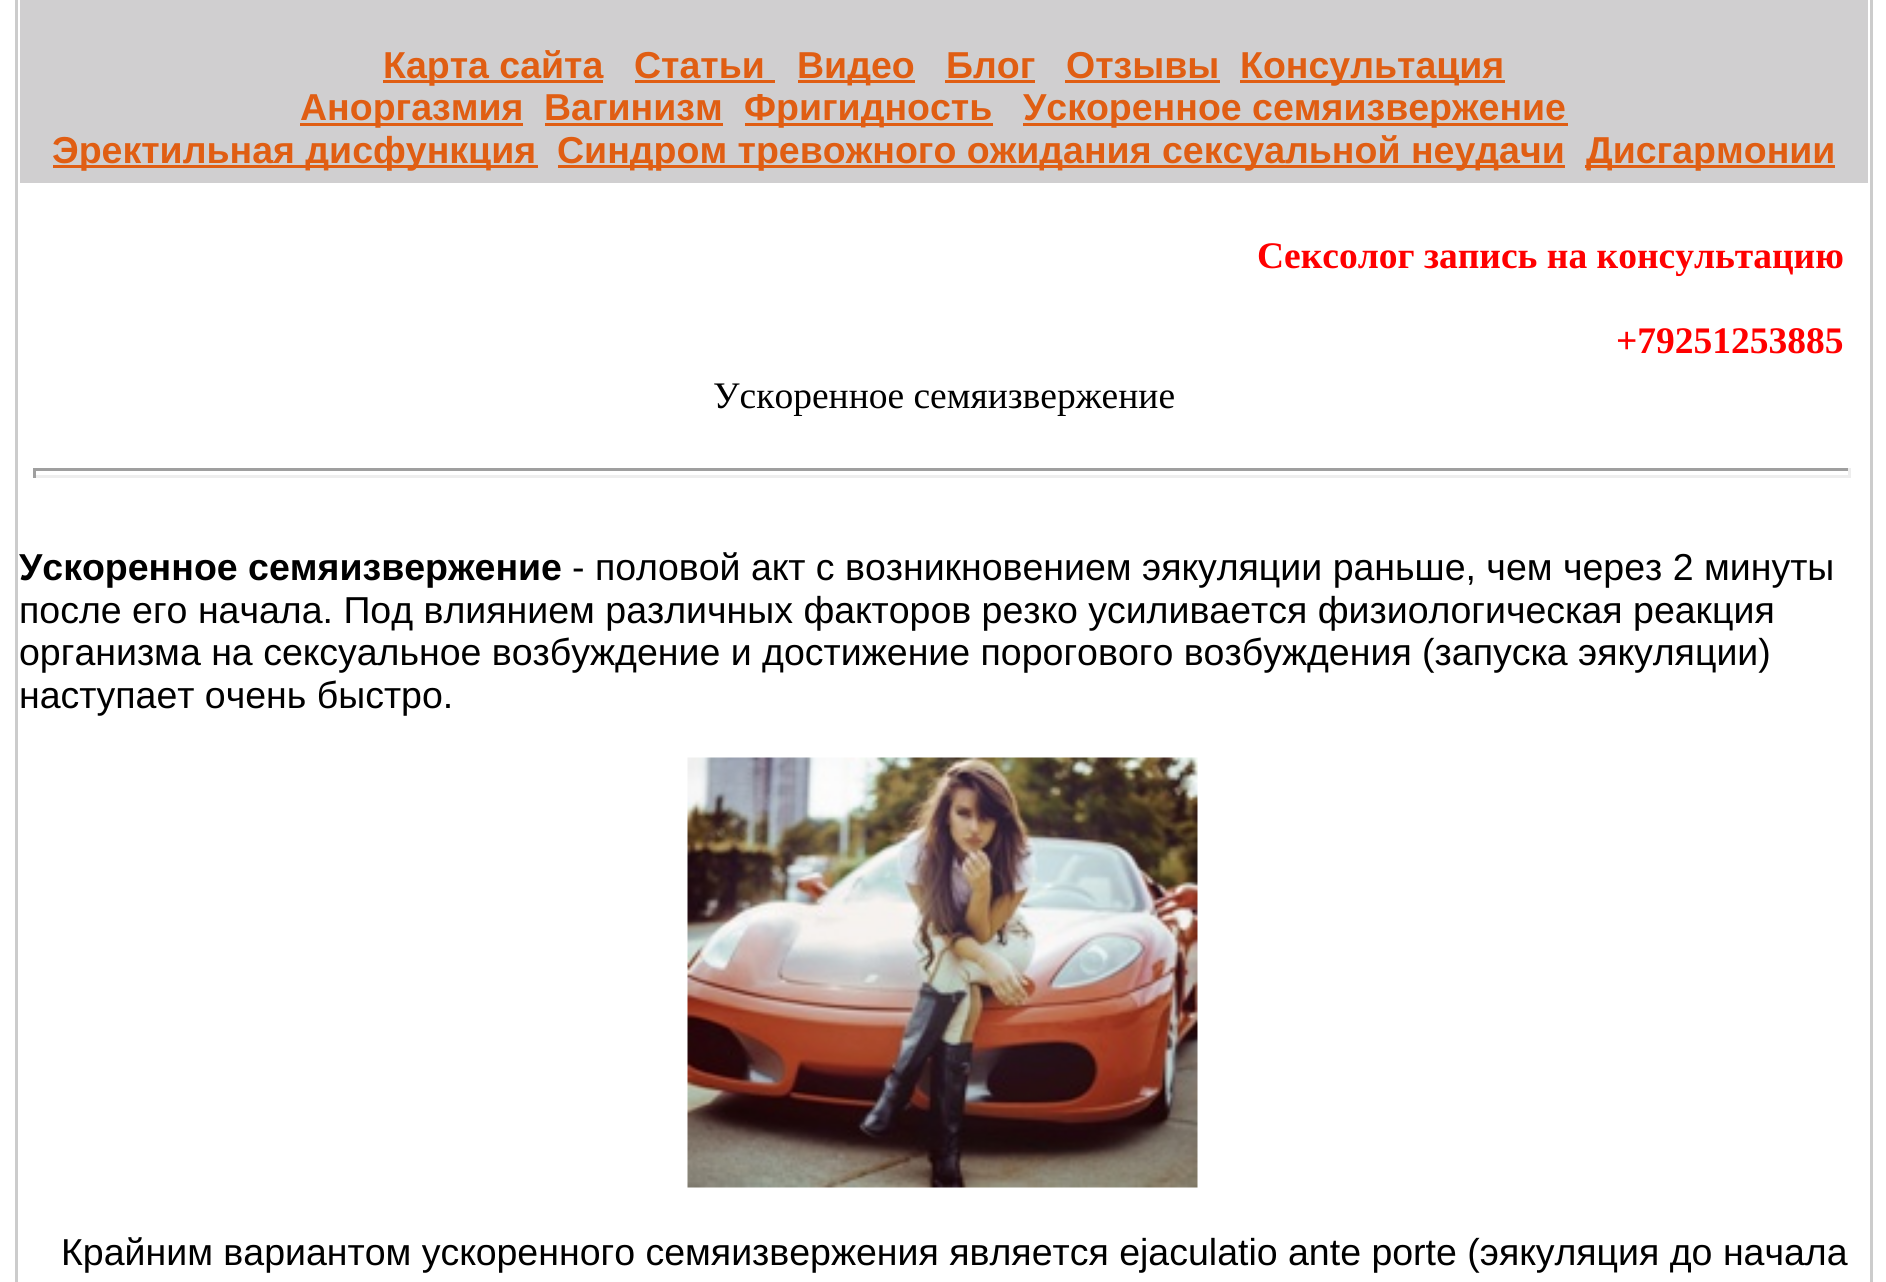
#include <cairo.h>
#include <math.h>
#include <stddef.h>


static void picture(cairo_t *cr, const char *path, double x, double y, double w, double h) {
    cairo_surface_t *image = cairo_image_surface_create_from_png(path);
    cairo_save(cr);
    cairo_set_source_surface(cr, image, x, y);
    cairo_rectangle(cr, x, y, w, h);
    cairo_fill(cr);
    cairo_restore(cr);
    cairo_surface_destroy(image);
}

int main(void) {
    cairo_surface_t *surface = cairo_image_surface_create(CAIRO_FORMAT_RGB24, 1886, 1282);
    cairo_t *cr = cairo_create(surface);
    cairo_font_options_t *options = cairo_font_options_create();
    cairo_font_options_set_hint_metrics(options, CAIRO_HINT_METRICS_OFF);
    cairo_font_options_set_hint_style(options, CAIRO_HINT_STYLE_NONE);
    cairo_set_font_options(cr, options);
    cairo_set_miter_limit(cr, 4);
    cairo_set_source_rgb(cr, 1, 1, 1);
    cairo_paint(cr);
    cairo_set_source_rgb(cr, 0.8, 0.8, 0.8);
    cairo_rectangle(cr, 1870, 0, 3, 1282);
    cairo_fill(cr);
    cairo_rectangle(cr, 15, 0, 3, 1282);
    cairo_fill(cr);
    cairo_set_source_rgb(cr, 0.816, 0.812, 0.816);
    cairo_rectangle(cr, 20, 0, 1848, 183);
    cairo_fill(cr);
    cairo_set_source_rgb(cr, 0.878, 0.369, 0.078);
    cairo_rectangle(cr, 383, 80, 220, 3);
    cairo_fill(cr);
    cairo_select_font_face(cr, "Liberation Sans", CAIRO_FONT_SLANT_NORMAL, CAIRO_FONT_WEIGHT_BOLD);
    cairo_set_font_size(cr, 37.5);
    cairo_move_to(cr, 383, 78);
    cairo_show_text(cr, "Карта сайта");
    cairo_move_to(cr, 634, 78);
    cairo_show_text(cr, "Статьи");
    cairo_rectangle(cr, 635, 80, 140, 3);
    cairo_fill(cr);
    cairo_rectangle(cr, 798, 80, 117, 3);
    cairo_fill(cr);
    cairo_move_to(cr, 797, 78);
    cairo_show_text(cr, "Видео");
    cairo_move_to(cr, 946, 78);
    cairo_show_text(cr, "Блог");
    cairo_rectangle(cr, 945, 80, 90, 3);
    cairo_fill(cr);
    cairo_move_to(cr, 1066, 78);
    cairo_show_text(cr, "Отзывы");
    cairo_rectangle(cr, 1065, 80, 155, 3);
    cairo_fill(cr);
    cairo_rectangle(cr, 1240, 80, 265, 3);
    cairo_fill(cr);
    cairo_move_to(cr, 1240, 78);
    cairo_show_text(cr, "Консультация");
    cairo_rectangle(cr, 300, 123, 223, 3);
    cairo_fill(cr);
    cairo_move_to(cr, 300, 120);
    cairo_show_text(cr, "Аноргазмия");
    cairo_move_to(cr, 544, 120);
    cairo_show_text(cr, "Вагинизм");
    cairo_rectangle(cr, 545, 123, 178, 3);
    cairo_fill(cr);
    cairo_rectangle(cr, 745, 123, 248, 3);
    cairo_fill(cr);
    cairo_move_to(cr, 744, 120);
    cairo_show_text(cr, "Фригидность");
    cairo_rectangle(cr, 1023, 123, 545, 3);
    cairo_fill(cr);
    cairo_move_to(cr, 1023, 120);
    cairo_show_text(cr, "Ускоренное семяизвержение");
    cairo_rectangle(cr, 53, 165, 485, 3);
    cairo_fill(cr);
    cairo_move_to(cr, 52, 163);
    cairo_show_text(cr, "Эректильная дисфункция");
    cairo_rectangle(cr, 558, 165, 1007, 3);
    cairo_fill(cr);
    cairo_move_to(cr, 557, 163);
    cairo_show_text(cr, "Синдром тревожного ожидания сексуальной неудачи");
    cairo_rectangle(cr, 1585, 165, 250, 3);
    cairo_fill(cr);
    cairo_move_to(cr, 1586, 163);
    cairo_show_text(cr, "Дисгармонии");
    cairo_select_font_face(cr, "Liberation Serif", CAIRO_FONT_SLANT_NORMAL, CAIRO_FONT_WEIGHT_BOLD);
    cairo_set_source_rgb(cr, 1, 0, 0);
    cairo_move_to(cr, 1257, 268);
    cairo_show_text(cr, "Сексолог запись на консультацию");
    cairo_move_to(cr, 1616, 353);
    cairo_show_text(cr, "+79251253885");
    cairo_select_font_face(cr, "Liberation Serif", CAIRO_FONT_SLANT_NORMAL, CAIRO_FONT_WEIGHT_NORMAL);
    cairo_set_source_rgb(cr, 0, 0, 0);
    cairo_move_to(cr, 713, 408);
    cairo_show_text(cr, "Ускоренное семяизвержение");
    cairo_set_source_rgb(cr, 0.624, 0.624, 0.624);
    cairo_rectangle(cr, 33, 468, 1817, 3);
    cairo_fill(cr);
    cairo_set_source_rgb(cr, 0.933, 0.933, 0.933);
    cairo_rectangle(cr, 1848, 468, 3, 10);
    cairo_fill(cr);
    cairo_rectangle(cr, 33, 475, 1817, 3);
    cairo_fill(cr);
    cairo_set_source_rgb(cr, 0.624, 0.624, 0.624);
    cairo_rectangle(cr, 33, 468, 3, 10);
    cairo_fill(cr);
    cairo_select_font_face(cr, "Liberation Sans", CAIRO_FONT_SLANT_NORMAL, CAIRO_FONT_WEIGHT_BOLD);
    cairo_set_source_rgb(cr, 0, 0, 0);
    cairo_move_to(cr, 19, 580);
    cairo_show_text(cr, "Ускоренное семяизвержение");
    cairo_select_font_face(cr, "Liberation Sans", CAIRO_FONT_SLANT_NORMAL, CAIRO_FONT_WEIGHT_NORMAL);
    cairo_move_to(cr, 572, 580);
    cairo_show_text(cr, "- половой акт с возникновением эякуляции раньше, чем через 2 минуты");
    cairo_move_to(cr, 19, 623);
    cairo_show_text(cr, "после его начала. Под влиянием различных факторов резко усиливается физиологическая реакция");
    cairo_move_to(cr, 19, 665);
    cairo_show_text(cr, "организма на сексуальное возбуждение и достижение порогового возбуждения (запуска эякуляции)");
    cairo_move_to(cr, 19, 708);
    cairo_show_text(cr, "наступает очень быстро.");
    picture(cr, "img1.png", 687, 757, 511, 431);
    cairo_move_to(cr, 61, 1265);
    cairo_show_text(cr, "Крайним вариантом ускоренного семяизвержения является ejaculatio ante рorte (эякуляция до начала");
    cairo_surface_write_to_png(surface, "page.png");
    cairo_font_options_destroy(options);
    cairo_destroy(cr);
    cairo_surface_destroy(surface);
    return 0;
}
